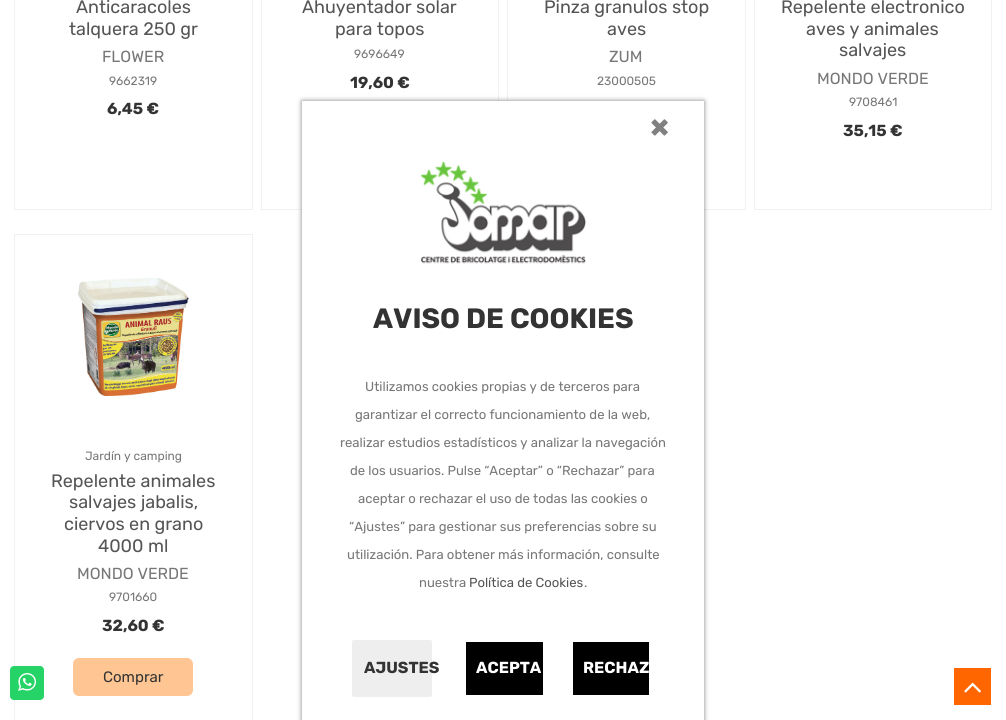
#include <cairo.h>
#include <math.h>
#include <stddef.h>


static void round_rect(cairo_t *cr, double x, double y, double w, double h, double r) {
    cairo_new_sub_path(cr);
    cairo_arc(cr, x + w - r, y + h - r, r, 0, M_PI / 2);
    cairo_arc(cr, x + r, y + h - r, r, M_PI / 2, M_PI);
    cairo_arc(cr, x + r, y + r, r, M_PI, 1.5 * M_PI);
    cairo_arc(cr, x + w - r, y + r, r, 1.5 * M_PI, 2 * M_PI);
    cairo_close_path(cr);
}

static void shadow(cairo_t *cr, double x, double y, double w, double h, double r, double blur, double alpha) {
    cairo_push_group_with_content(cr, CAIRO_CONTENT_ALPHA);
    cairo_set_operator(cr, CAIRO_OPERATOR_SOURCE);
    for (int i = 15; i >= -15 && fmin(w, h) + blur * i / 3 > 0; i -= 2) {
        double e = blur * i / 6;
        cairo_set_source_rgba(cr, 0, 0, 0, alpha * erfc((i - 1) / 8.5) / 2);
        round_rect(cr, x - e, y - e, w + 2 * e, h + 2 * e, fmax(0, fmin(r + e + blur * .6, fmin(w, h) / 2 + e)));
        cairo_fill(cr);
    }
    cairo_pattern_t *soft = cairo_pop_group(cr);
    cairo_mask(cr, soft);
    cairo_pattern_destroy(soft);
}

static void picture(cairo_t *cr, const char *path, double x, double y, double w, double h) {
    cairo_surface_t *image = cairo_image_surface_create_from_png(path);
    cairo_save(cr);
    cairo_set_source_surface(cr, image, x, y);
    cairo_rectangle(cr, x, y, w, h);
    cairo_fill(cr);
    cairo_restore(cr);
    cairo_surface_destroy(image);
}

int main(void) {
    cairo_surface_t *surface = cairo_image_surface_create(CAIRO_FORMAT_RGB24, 1006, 720);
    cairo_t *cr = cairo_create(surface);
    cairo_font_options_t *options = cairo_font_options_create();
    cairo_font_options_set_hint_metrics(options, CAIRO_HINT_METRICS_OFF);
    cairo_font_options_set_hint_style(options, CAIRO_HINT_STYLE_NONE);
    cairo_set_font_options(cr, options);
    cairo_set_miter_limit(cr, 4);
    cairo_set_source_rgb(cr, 1, 1, 1);
    cairo_paint(cr);
    cairo_rectangle(cr, 14.5, -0.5, 238, 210);
    cairo_set_source_rgb(cr, 0.945, 0.945, 0.945);
    cairo_set_line_width(cr, 1);
    cairo_stroke(cr);
    cairo_select_font_face(cr, "Rubik", CAIRO_FONT_SLANT_NORMAL, CAIRO_FONT_WEIGHT_NORMAL);
    cairo_set_font_size(cr, 18);
    cairo_set_source_rgb(cr, 0.333, 0.333, 0.333);
    cairo_move_to(cr, 76, 13);
    cairo_show_text(cr, "Anticaracoles");
    cairo_move_to(cr, 69, 35);
    cairo_show_text(cr, "talquera 250 gr");
    cairo_set_font_size(cr, 16);
    cairo_set_source_rgb(cr, 0.467, 0.467, 0.467);
    cairo_move_to(cr, 102, 62);
    cairo_show_text(cr, "FLOWER");
    cairo_set_font_size(cr, 12);
    cairo_move_to(cr, 109, 85);
    cairo_show_text(cr, "9662319");
    cairo_select_font_face(cr, "Rubik", CAIRO_FONT_SLANT_NORMAL, CAIRO_FONT_WEIGHT_BOLD);
    cairo_set_font_size(cr, 16);
    cairo_set_source_rgb(cr, 0.2, 0.2, 0.2);
    cairo_move_to(cr, 107, 114);
    cairo_show_text(cr, "6,45 €");
    cairo_rectangle(cr, 261.5, -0.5, 237, 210);
    cairo_set_source_rgb(cr, 0.945, 0.945, 0.945);
    cairo_stroke(cr);
    cairo_select_font_face(cr, "Rubik", CAIRO_FONT_SLANT_NORMAL, CAIRO_FONT_WEIGHT_NORMAL);
    cairo_set_font_size(cr, 18);
    cairo_set_source_rgb(cr, 0.333, 0.333, 0.333);
    cairo_move_to(cr, 302, 13);
    cairo_show_text(cr, "Ahuyentador solar");
    cairo_move_to(cr, 335, 35);
    cairo_show_text(cr, "para topos");
    cairo_set_font_size(cr, 12);
    cairo_set_source_rgb(cr, 0.467, 0.467, 0.467);
    cairo_move_to(cr, 354, 58);
    cairo_show_text(cr, "9696649");
    cairo_select_font_face(cr, "Rubik", CAIRO_FONT_SLANT_NORMAL, CAIRO_FONT_WEIGHT_BOLD);
    cairo_set_font_size(cr, 16);
    cairo_set_source_rgb(cr, 0.2, 0.2, 0.2);
    cairo_move_to(cr, 350, 88);
    cairo_show_text(cr, "19,60 €");
    cairo_rectangle(cr, 507.5, -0.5, 238, 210);
    cairo_set_source_rgb(cr, 0.945, 0.945, 0.945);
    cairo_stroke(cr);
    cairo_select_font_face(cr, "Rubik", CAIRO_FONT_SLANT_NORMAL, CAIRO_FONT_WEIGHT_NORMAL);
    cairo_set_font_size(cr, 18);
    cairo_set_source_rgb(cr, 0.333, 0.333, 0.333);
    cairo_move_to(cr, 544, 13);
    cairo_show_text(cr, "Pinza granulos stop");
    cairo_move_to(cr, 607, 35);
    cairo_show_text(cr, "aves");
    cairo_set_font_size(cr, 16);
    cairo_set_source_rgb(cr, 0.467, 0.467, 0.467);
    cairo_move_to(cr, 609, 62);
    cairo_show_text(cr, "ZUM");
    cairo_set_font_size(cr, 12);
    cairo_move_to(cr, 597, 85);
    cairo_show_text(cr, "23000505");
    cairo_rectangle(cr, 754.5, -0.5, 237, 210);
    cairo_set_source_rgb(cr, 0.945, 0.945, 0.945);
    cairo_stroke(cr);
    cairo_set_font_size(cr, 18);
    cairo_set_source_rgb(cr, 0.333, 0.333, 0.333);
    cairo_move_to(cr, 781, 13);
    cairo_show_text(cr, "Repelente electronico");
    cairo_move_to(cr, 806, 35);
    cairo_show_text(cr, "aves y animales");
    cairo_move_to(cr, 839, 56);
    cairo_show_text(cr, "salvajes");
    cairo_set_font_size(cr, 16);
    cairo_set_source_rgb(cr, 0.467, 0.467, 0.467);
    cairo_move_to(cr, 817, 84);
    cairo_show_text(cr, "MONDO VERDE");
    cairo_set_font_size(cr, 12);
    cairo_move_to(cr, 849, 106);
    cairo_show_text(cr, "9708461");
    cairo_select_font_face(cr, "Rubik", CAIRO_FONT_SLANT_NORMAL, CAIRO_FONT_WEIGHT_BOLD);
    cairo_set_font_size(cr, 16);
    cairo_set_source_rgb(cr, 0.2, 0.2, 0.2);
    cairo_move_to(cr, 843, 136);
    cairo_show_text(cr, "35,15 €");
    cairo_rectangle(cr, 14.5, 234.5, 238, 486);
    cairo_set_source_rgb(cr, 0.945, 0.945, 0.945);
    cairo_stroke(cr);
    picture(cr, "img1.png", 78, 278, 111, 119);
    cairo_select_font_face(cr, "Rubik", CAIRO_FONT_SLANT_NORMAL, CAIRO_FONT_WEIGHT_NORMAL);
    cairo_set_font_size(cr, 12);
    cairo_set_source_rgb(cr, 0.467, 0.467, 0.467);
    cairo_move_to(cr, 85, 460);
    cairo_show_text(cr, "Jardín y camping");
    cairo_set_font_size(cr, 18);
    cairo_set_source_rgb(cr, 0.333, 0.333, 0.333);
    cairo_move_to(cr, 51, 487);
    cairo_show_text(cr, "Repelente animales");
    cairo_move_to(cr, 69, 508);
    cairo_show_text(cr, "salvajes jabalis,");
    cairo_move_to(cr, 64, 530);
    cairo_show_text(cr, "ciervos en grano");
    cairo_move_to(cr, 98, 552);
    cairo_show_text(cr, "4000 ml");
    cairo_set_font_size(cr, 16);
    cairo_set_source_rgb(cr, 0.467, 0.467, 0.467);
    cairo_move_to(cr, 77, 579);
    cairo_show_text(cr, "MONDO VERDE");
    cairo_set_font_size(cr, 12);
    cairo_move_to(cr, 109, 601);
    cairo_show_text(cr, "9701660");
    cairo_select_font_face(cr, "Rubik", CAIRO_FONT_SLANT_NORMAL, CAIRO_FONT_WEIGHT_BOLD);
    cairo_set_font_size(cr, 16);
    cairo_set_source_rgb(cr, 0.2, 0.2, 0.2);
    cairo_move_to(cr, 102, 631);
    cairo_show_text(cr, "32,60 €");
    cairo_set_source_rgb(cr, 1, 0.776, 0.58);
    round_rect(cr, 73, 658, 120, 38, 6);
    cairo_fill(cr);
    cairo_select_font_face(cr, "Rubik", CAIRO_FONT_SLANT_NORMAL, CAIRO_FONT_WEIGHT_NORMAL);
    cairo_set_font_size(cr, 15);
    cairo_set_source_rgb(cr, 0.2, 0.2, 0.2);
    cairo_move_to(cr, 103, 682);
    cairo_show_text(cr, "Comprar");
    cairo_set_source_rgb(cr, 0, 0, 0);
    shadow(cr, 302, 101, 402, 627, 0, 2.5, 0.5);
    cairo_set_source_rgb(cr, 1, 1, 1);
    cairo_rectangle(cr, 302, 101, 402, 619);
    cairo_fill(cr);
    cairo_select_font_face(cr, "Rubik", CAIRO_FONT_SLANT_NORMAL, CAIRO_FONT_WEIGHT_BOLD);
    cairo_set_font_size(cr, 32);
    cairo_set_source_rgb(cr, 0.502, 0.502, 0.502);
    cairo_move_to(cr, 650, 137);
    cairo_show_text(cr, "×");
    picture(cr, "img2.png", 421, 161, 165, 103);
    cairo_set_font_size(cr, 28);
    cairo_set_source_rgb(cr, 0.2, 0.2, 0.2);
    cairo_move_to(cr, 373, 328);
    cairo_show_text(cr, "AVISO DE COOKIES");
    cairo_select_font_face(cr, "Rubik", CAIRO_FONT_SLANT_NORMAL, CAIRO_FONT_WEIGHT_NORMAL);
    cairo_set_font_size(cr, 13.1);
    cairo_set_source_rgb(cr, 0.467, 0.467, 0.467);
    cairo_move_to(cr, 365, 391);
    cairo_show_text(cr, "Utilizamos cookies propias y de terceros para");
    cairo_move_to(cr, 355, 419);
    cairo_show_text(cr, "garantizar el correcto funcionamiento de la web,");
    cairo_move_to(cr, 340, 447);
    cairo_show_text(cr, "realizar estudios estadísticos y analizar la navegación");
    cairo_move_to(cr, 350, 475);
    cairo_show_text(cr, "de los usuarios. Pulse “Aceptar” o “Rechazar” para");
    cairo_move_to(cr, 358, 503);
    cairo_show_text(cr, "aceptar o rechazar el uso de todas las cookies o");
    cairo_move_to(cr, 349, 531);
    cairo_show_text(cr, "“Ajustes” para gestionar sus preferencias sobre su");
    cairo_move_to(cr, 347, 559);
    cairo_show_text(cr, "utilización. Para obtener más información, consulte");
    cairo_move_to(cr, 419, 587);
    cairo_show_text(cr, "nuestra");
    cairo_set_source_rgb(cr, 0.333, 0.333, 0.333);
    cairo_move_to(cr, 469, 587);
    cairo_show_text(cr, "Política de Cookies");
    cairo_set_source_rgb(cr, 0.467, 0.467, 0.467);
    cairo_move_to(cr, 584, 587);
    cairo_show_text(cr, ".");
    cairo_set_source_rgb(cr, 0.933, 0.933, 0.933);
    round_rect(cr, 353, 641, 78, 55, 1);
    cairo_fill_preserve(cr);
    cairo_set_line_width(cr, 2);
    cairo_stroke(cr);
    cairo_select_font_face(cr, "Rubik", CAIRO_FONT_SLANT_NORMAL, CAIRO_FONT_WEIGHT_BOLD);
    cairo_set_font_size(cr, 16);
    cairo_set_source_rgb(cr, 0.2, 0.2, 0.2);
    cairo_move_to(cr, 364, 673);
    cairo_show_text(cr, "AJUSTES");
    cairo_set_source_rgb(cr, 0, 0, 0);
    round_rect(cr, 465, 641, 79, 55, 1);
    cairo_fill_preserve(cr);
    cairo_set_source_rgb(cr, 1, 1, 1);
    cairo_stroke(cr);
    cairo_move_to(cr, 476, 673);
    cairo_show_text(cr, "ACEPTA");
    cairo_set_source_rgb(cr, 0, 0, 0);
    round_rect(cr, 572, 641, 78, 55, 1);
    cairo_fill_preserve(cr);
    cairo_set_source_rgb(cr, 1, 1, 1);
    cairo_stroke(cr);
    cairo_move_to(cr, 583, 673);
    cairo_show_text(cr, "RECHAZ");
    cairo_set_source_rgb(cr, 0.145, 0.827, 0.4);
    round_rect(cr, 10, 666, 34, 34, 4);
    cairo_fill(cr);
    picture(cr, "img3.png", 18, 673, 18, 18);
    cairo_set_source_rgb(cr, 1, 0.4, 0);
    cairo_rectangle(cr, 954, 668, 37, 37);
    cairo_fill(cr);
    picture(cr, "img4.png", 964, 682, 17, 11);
    cairo_surface_write_to_png(surface, "page.png");
    cairo_font_options_destroy(options);
    cairo_destroy(cr);
    cairo_surface_destroy(surface);
    return 0;
}
